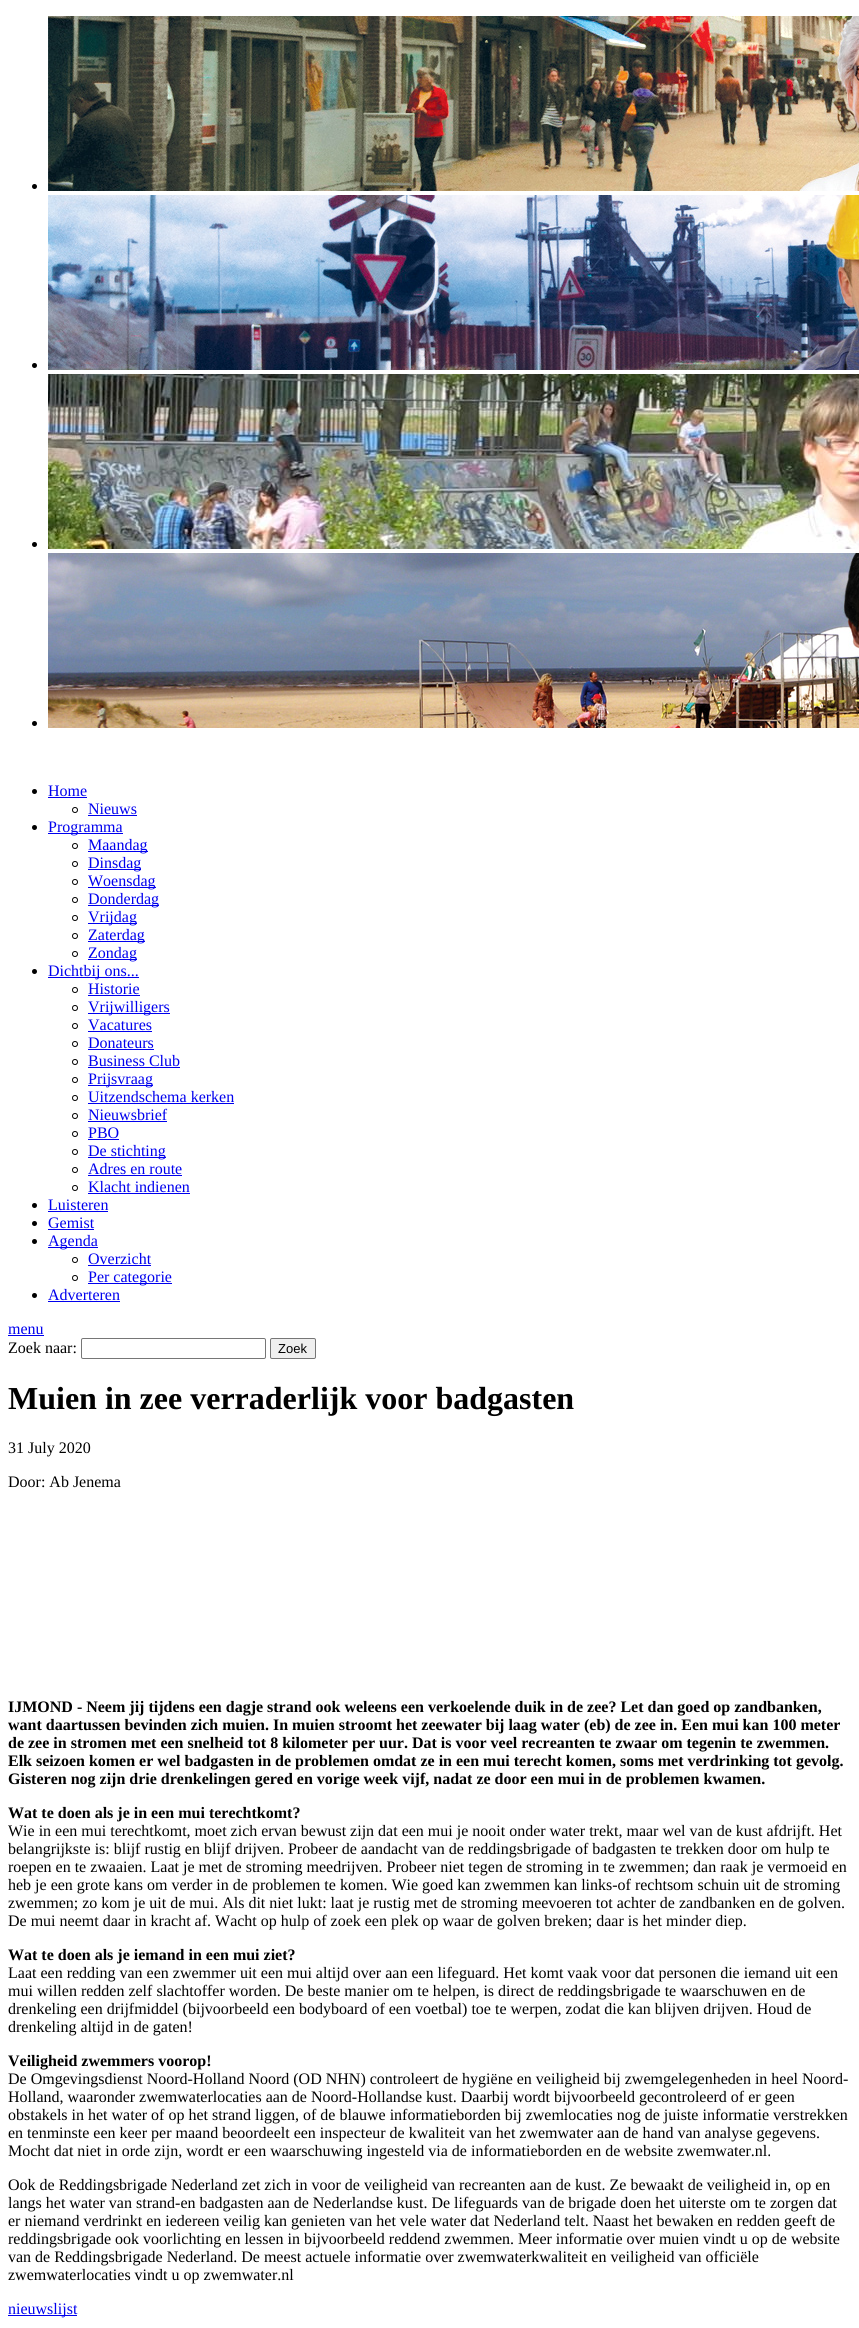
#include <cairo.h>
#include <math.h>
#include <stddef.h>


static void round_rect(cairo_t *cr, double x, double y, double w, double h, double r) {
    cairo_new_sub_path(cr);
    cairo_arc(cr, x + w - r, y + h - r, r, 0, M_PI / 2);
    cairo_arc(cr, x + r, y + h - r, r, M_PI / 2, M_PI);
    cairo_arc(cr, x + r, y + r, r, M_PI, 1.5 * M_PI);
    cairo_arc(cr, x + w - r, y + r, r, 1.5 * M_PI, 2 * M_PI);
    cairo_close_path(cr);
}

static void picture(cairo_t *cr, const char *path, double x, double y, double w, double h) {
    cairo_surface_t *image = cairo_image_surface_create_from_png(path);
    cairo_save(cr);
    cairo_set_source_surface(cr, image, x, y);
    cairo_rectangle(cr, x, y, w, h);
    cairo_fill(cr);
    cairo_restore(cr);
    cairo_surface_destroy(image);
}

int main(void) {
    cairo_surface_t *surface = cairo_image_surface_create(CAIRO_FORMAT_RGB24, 859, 2328);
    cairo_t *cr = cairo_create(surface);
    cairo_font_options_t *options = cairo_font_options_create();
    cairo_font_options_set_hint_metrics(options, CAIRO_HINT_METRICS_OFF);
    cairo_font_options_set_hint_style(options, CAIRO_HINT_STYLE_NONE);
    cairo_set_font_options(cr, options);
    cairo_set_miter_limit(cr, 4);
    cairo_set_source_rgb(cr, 1, 1, 1);
    cairo_paint(cr);
    cairo_set_source_rgb(cr, 0, 0, 0);
    cairo_arc(cr, 34.5, 186.5, 2.5, 0, 2 * M_PI);
    cairo_fill(cr);
    picture(cr, "img1.png", 48, 16, 811, 175);
    cairo_arc(cr, 34.5, 365.5, 2.5, 0, 2 * M_PI);
    cairo_fill(cr);
    picture(cr, "img2.png", 48, 195, 811, 175);
    cairo_arc(cr, 34.5, 544.5, 2.5, 0, 2 * M_PI);
    cairo_fill(cr);
    picture(cr, "img3.png", 48, 374, 811, 175);
    cairo_arc(cr, 34.5, 723.5, 2.5, 0, 2 * M_PI);
    cairo_fill(cr);
    picture(cr, "img4.png", 48, 553, 811, 175);
    cairo_arc(cr, 34.5, 791.5, 2.5, 0, 2 * M_PI);
    cairo_fill(cr);
    cairo_select_font_face(cr, "Liberation Serif", CAIRO_FONT_SLANT_NORMAL, CAIRO_FONT_WEIGHT_NORMAL);
    cairo_set_font_size(cr, 16);
    cairo_set_source_rgb(cr, 0, 0, 0.933);
    cairo_move_to(cr, 48, 796);
    cairo_show_text(cr, "Home");
    cairo_rectangle(cr, 48, 797, 39, 1);
    cairo_fill(cr);
    cairo_arc(cr, 75, 810, 2.5, 0, 2 * M_PI);
    cairo_set_source_rgb(cr, 0, 0, 0);
    cairo_set_line_width(cr, 1);
    cairo_stroke(cr);
    cairo_set_source_rgb(cr, 0, 0, 0.933);
    cairo_move_to(cr, 88, 814);
    cairo_show_text(cr, "Nieuws");
    cairo_rectangle(cr, 88, 815, 49, 1);
    cairo_fill(cr);
    cairo_set_source_rgb(cr, 0, 0, 0);
    cairo_arc(cr, 34.5, 827.5, 2.5, 0, 2 * M_PI);
    cairo_fill(cr);
    cairo_set_source_rgb(cr, 0, 0, 0.933);
    cairo_rectangle(cr, 48, 833, 75, 1);
    cairo_fill(cr);
    cairo_move_to(cr, 48, 832);
    cairo_show_text(cr, "Programma");
    cairo_new_path(cr);
    cairo_arc(cr, 75, 846, 2.5, 0, 2 * M_PI);
    cairo_set_source_rgb(cr, 0, 0, 0);
    cairo_stroke(cr);
    cairo_set_source_rgb(cr, 0, 0, 0.933);
    cairo_rectangle(cr, 88, 851, 60, 1);
    cairo_fill(cr);
    cairo_move_to(cr, 88, 850);
    cairo_show_text(cr, "Maandag");
    cairo_new_path(cr);
    cairo_arc(cr, 75, 864, 2.5, 0, 2 * M_PI);
    cairo_set_source_rgb(cr, 0, 0, 0);
    cairo_stroke(cr);
    cairo_set_source_rgb(cr, 0, 0, 0.933);
    cairo_rectangle(cr, 88, 869, 53, 1);
    cairo_fill(cr);
    cairo_move_to(cr, 88, 868);
    cairo_show_text(cr, "Dinsdag");
    cairo_new_path(cr);
    cairo_arc(cr, 75, 882, 2.5, 0, 2 * M_PI);
    cairo_set_source_rgb(cr, 0, 0, 0);
    cairo_stroke(cr);
    cairo_set_source_rgb(cr, 0, 0, 0.933);
    cairo_rectangle(cr, 88, 887, 68, 1);
    cairo_fill(cr);
    cairo_move_to(cr, 88, 886);
    cairo_show_text(cr, "Woensdag");
    cairo_new_path(cr);
    cairo_arc(cr, 75, 900, 2.5, 0, 2 * M_PI);
    cairo_set_source_rgb(cr, 0, 0, 0);
    cairo_stroke(cr);
    cairo_set_source_rgb(cr, 0, 0, 0.933);
    cairo_rectangle(cr, 88, 905, 71, 1);
    cairo_fill(cr);
    cairo_move_to(cr, 88, 904);
    cairo_show_text(cr, "Donderdag");
    cairo_new_path(cr);
    cairo_arc(cr, 75, 918, 2.5, 0, 2 * M_PI);
    cairo_set_source_rgb(cr, 0, 0, 0);
    cairo_stroke(cr);
    cairo_set_source_rgb(cr, 0, 0, 0.933);
    cairo_rectangle(cr, 88, 923, 49, 1);
    cairo_fill(cr);
    cairo_move_to(cr, 88, 922);
    cairo_show_text(cr, "Vrijdag");
    cairo_new_path(cr);
    cairo_arc(cr, 75, 936, 2.5, 0, 2 * M_PI);
    cairo_set_source_rgb(cr, 0, 0, 0);
    cairo_stroke(cr);
    cairo_set_source_rgb(cr, 0, 0, 0.933);
    cairo_rectangle(cr, 88, 941, 57, 1);
    cairo_fill(cr);
    cairo_move_to(cr, 88, 940);
    cairo_show_text(cr, "Zaterdag");
    cairo_new_path(cr);
    cairo_arc(cr, 75, 954, 2.5, 0, 2 * M_PI);
    cairo_set_source_rgb(cr, 0, 0, 0);
    cairo_stroke(cr);
    cairo_set_source_rgb(cr, 0, 0, 0.933);
    cairo_rectangle(cr, 88, 959, 49, 1);
    cairo_fill(cr);
    cairo_move_to(cr, 88, 958);
    cairo_show_text(cr, "Zondag");
    cairo_set_source_rgb(cr, 0, 0, 0);
    cairo_new_path(cr);
    cairo_arc(cr, 34.5, 971.5, 2.5, 0, 2 * M_PI);
    cairo_fill(cr);
    cairo_set_source_rgb(cr, 0, 0, 0.933);
    cairo_rectangle(cr, 48, 977, 91, 1);
    cairo_fill(cr);
    cairo_move_to(cr, 48, 976);
    cairo_show_text(cr, "Dichtbij ons...");
    cairo_new_path(cr);
    cairo_arc(cr, 75, 990, 2.5, 0, 2 * M_PI);
    cairo_set_source_rgb(cr, 0, 0, 0);
    cairo_stroke(cr);
    cairo_set_source_rgb(cr, 0, 0, 0.933);
    cairo_move_to(cr, 88, 994);
    cairo_show_text(cr, "Historie");
    cairo_rectangle(cr, 88, 995, 52, 1);
    cairo_fill(cr);
    cairo_arc(cr, 75, 1008, 2.5, 0, 2 * M_PI);
    cairo_set_source_rgb(cr, 0, 0, 0);
    cairo_stroke(cr);
    cairo_set_source_rgb(cr, 0, 0, 0.933);
    cairo_rectangle(cr, 88, 1013, 82, 1);
    cairo_fill(cr);
    cairo_move_to(cr, 88, 1012);
    cairo_show_text(cr, "Vrijwilligers");
    cairo_new_path(cr);
    cairo_arc(cr, 75, 1026, 2.5, 0, 2 * M_PI);
    cairo_set_source_rgb(cr, 0, 0, 0);
    cairo_stroke(cr);
    cairo_set_source_rgb(cr, 0, 0, 0.933);
    cairo_move_to(cr, 88, 1030);
    cairo_show_text(cr, "Vacatures");
    cairo_rectangle(cr, 88, 1031, 64, 1);
    cairo_fill(cr);
    cairo_arc(cr, 75, 1044, 2.5, 0, 2 * M_PI);
    cairo_set_source_rgb(cr, 0, 0, 0);
    cairo_stroke(cr);
    cairo_set_source_rgb(cr, 0, 0, 0.933);
    cairo_move_to(cr, 88, 1048);
    cairo_show_text(cr, "Donateurs");
    cairo_rectangle(cr, 88, 1049, 66, 1);
    cairo_fill(cr);
    cairo_arc(cr, 75, 1062, 2.5, 0, 2 * M_PI);
    cairo_set_source_rgb(cr, 0, 0, 0);
    cairo_stroke(cr);
    cairo_set_source_rgb(cr, 0, 0, 0.933);
    cairo_move_to(cr, 88, 1066);
    cairo_show_text(cr, "Business Club");
    cairo_rectangle(cr, 88, 1067, 92, 1);
    cairo_fill(cr);
    cairo_arc(cr, 75, 1080, 2.5, 0, 2 * M_PI);
    cairo_set_source_rgb(cr, 0, 0, 0);
    cairo_stroke(cr);
    cairo_set_source_rgb(cr, 0, 0, 0.933);
    cairo_rectangle(cr, 88, 1085, 65, 1);
    cairo_fill(cr);
    cairo_move_to(cr, 88, 1084);
    cairo_show_text(cr, "Prijsvraag");
    cairo_new_path(cr);
    cairo_arc(cr, 75, 1098, 2.5, 0, 2 * M_PI);
    cairo_set_source_rgb(cr, 0, 0, 0);
    cairo_stroke(cr);
    cairo_set_source_rgb(cr, 0, 0, 0.933);
    cairo_move_to(cr, 88, 1102);
    cairo_show_text(cr, "Uitzendschema kerken");
    cairo_rectangle(cr, 88, 1103, 146, 1);
    cairo_fill(cr);
    cairo_arc(cr, 75, 1116, 2.5, 0, 2 * M_PI);
    cairo_set_source_rgb(cr, 0, 0, 0);
    cairo_stroke(cr);
    cairo_set_source_rgb(cr, 0, 0, 0.933);
    cairo_move_to(cr, 88, 1120);
    cairo_show_text(cr, "Nieuwsbrief");
    cairo_rectangle(cr, 88, 1121, 79, 1);
    cairo_fill(cr);
    cairo_arc(cr, 75, 1134, 2.5, 0, 2 * M_PI);
    cairo_set_source_rgb(cr, 0, 0, 0);
    cairo_stroke(cr);
    cairo_set_source_rgb(cr, 0, 0, 0.933);
    cairo_move_to(cr, 88, 1138);
    cairo_show_text(cr, "PBO");
    cairo_rectangle(cr, 88, 1139, 31, 1);
    cairo_fill(cr);
    cairo_arc(cr, 75, 1152, 2.5, 0, 2 * M_PI);
    cairo_set_source_rgb(cr, 0, 0, 0);
    cairo_stroke(cr);
    cairo_set_source_rgb(cr, 0, 0, 0.933);
    cairo_rectangle(cr, 88, 1157, 78, 1);
    cairo_fill(cr);
    cairo_move_to(cr, 88, 1156);
    cairo_show_text(cr, "De stichting");
    cairo_new_path(cr);
    cairo_arc(cr, 75, 1170, 2.5, 0, 2 * M_PI);
    cairo_set_source_rgb(cr, 0, 0, 0);
    cairo_stroke(cr);
    cairo_set_source_rgb(cr, 0, 0, 0.933);
    cairo_move_to(cr, 88, 1174);
    cairo_show_text(cr, "Adres en route");
    cairo_rectangle(cr, 88, 1175, 94, 1);
    cairo_fill(cr);
    cairo_arc(cr, 75, 1188, 2.5, 0, 2 * M_PI);
    cairo_set_source_rgb(cr, 0, 0, 0);
    cairo_stroke(cr);
    cairo_set_source_rgb(cr, 0, 0, 0.933);
    cairo_move_to(cr, 88, 1192);
    cairo_show_text(cr, "Klacht indienen");
    cairo_rectangle(cr, 88, 1193, 102, 1);
    cairo_fill(cr);
    cairo_set_source_rgb(cr, 0, 0, 0);
    cairo_arc(cr, 34.5, 1205.5, 2.5, 0, 2 * M_PI);
    cairo_fill(cr);
    cairo_set_source_rgb(cr, 0, 0, 0.933);
    cairo_move_to(cr, 48, 1210);
    cairo_show_text(cr, "Luisteren");
    cairo_rectangle(cr, 48, 1211, 60, 1);
    cairo_fill(cr);
    cairo_set_source_rgb(cr, 0, 0, 0);
    cairo_arc(cr, 34.5, 1223.5, 2.5, 0, 2 * M_PI);
    cairo_fill(cr);
    cairo_set_source_rgb(cr, 0, 0, 0.933);
    cairo_move_to(cr, 48, 1228);
    cairo_show_text(cr, "Gemist");
    cairo_rectangle(cr, 48, 1229, 46, 1);
    cairo_fill(cr);
    cairo_set_source_rgb(cr, 0, 0, 0);
    cairo_arc(cr, 34.5, 1241.5, 2.5, 0, 2 * M_PI);
    cairo_fill(cr);
    cairo_set_source_rgb(cr, 0, 0, 0.933);
    cairo_rectangle(cr, 48, 1247, 50, 1);
    cairo_fill(cr);
    cairo_move_to(cr, 48, 1246);
    cairo_show_text(cr, "Agenda");
    cairo_new_path(cr);
    cairo_arc(cr, 75, 1260, 2.5, 0, 2 * M_PI);
    cairo_set_source_rgb(cr, 0, 0, 0);
    cairo_stroke(cr);
    cairo_set_source_rgb(cr, 0, 0, 0.933);
    cairo_move_to(cr, 88, 1264);
    cairo_show_text(cr, "Overzicht");
    cairo_rectangle(cr, 88, 1265, 63, 1);
    cairo_fill(cr);
    cairo_arc(cr, 75, 1278, 2.5, 0, 2 * M_PI);
    cairo_set_source_rgb(cr, 0, 0, 0);
    cairo_stroke(cr);
    cairo_set_source_rgb(cr, 0, 0, 0.933);
    cairo_rectangle(cr, 88, 1283, 84, 1);
    cairo_fill(cr);
    cairo_move_to(cr, 88, 1282);
    cairo_show_text(cr, "Per categorie");
    cairo_set_source_rgb(cr, 0, 0, 0);
    cairo_new_path(cr);
    cairo_arc(cr, 34.5, 1295.5, 2.5, 0, 2 * M_PI);
    cairo_fill(cr);
    cairo_set_source_rgb(cr, 0, 0, 0.933);
    cairo_move_to(cr, 48, 1300);
    cairo_show_text(cr, "Adverteren");
    cairo_rectangle(cr, 48, 1301, 72, 1);
    cairo_fill(cr);
    cairo_move_to(cr, 8, 1334);
    cairo_show_text(cr, "menu");
    cairo_rectangle(cr, 8, 1335, 36, 1);
    cairo_fill(cr);
    cairo_set_source_rgb(cr, 0, 0, 0);
    cairo_move_to(cr, 8, 1353);
    cairo_show_text(cr, "Zoek naar:");
    round_rect(cr, 81.5, 1338.5, 184, 20, 1.5);
    cairo_set_source_rgb(cr, 0.463, 0.463, 0.463);
    cairo_stroke(cr);
    cairo_set_source_rgb(cr, 0.937, 0.937, 0.937);
    round_rect(cr, 270.5, 1338.5, 45, 20, 1.5);
    cairo_fill_preserve(cr);
    cairo_set_source_rgb(cr, 0.463, 0.463, 0.463);
    cairo_stroke(cr);
    cairo_select_font_face(cr, "Liberation Sans", CAIRO_FONT_SLANT_NORMAL, CAIRO_FONT_WEIGHT_NORMAL);
    cairo_set_font_size(cr, 13);
    cairo_set_source_rgb(cr, 0, 0, 0);
    cairo_move_to(cr, 278, 1353);
    cairo_show_text(cr, "Zoek");
    cairo_select_font_face(cr, "Liberation Serif", CAIRO_FONT_SLANT_NORMAL, CAIRO_FONT_WEIGHT_BOLD);
    cairo_set_font_size(cr, 32);
    cairo_move_to(cr, 8, 1409);
    cairo_show_text(cr, "Muien in zee verraderlijk voor badgasten");
    cairo_select_font_face(cr, "Liberation Serif", CAIRO_FONT_SLANT_NORMAL, CAIRO_FONT_WEIGHT_NORMAL);
    cairo_set_font_size(cr, 16);
    cairo_move_to(cr, 8, 1453);
    cairo_show_text(cr, "31 July 2020");
    cairo_move_to(cr, 8, 1487);
    cairo_show_text(cr, "Door: Ab Jenema");
    cairo_select_font_face(cr, "Liberation Serif", CAIRO_FONT_SLANT_NORMAL, CAIRO_FONT_WEIGHT_BOLD);
    cairo_move_to(cr, 8, 1712);
    cairo_show_text(cr, "IJMOND - Neem jij tijdens een dagje strand ook weleens een verkoelende duik in de zee? Let dan goed op zandbanken,");
    cairo_move_to(cr, 8, 1730);
    cairo_show_text(cr, "want daartussen bevinden zich muien. In muien stroomt het zeewater bij laag water (eb) de zee in. Een mui kan 100 meter");
    cairo_move_to(cr, 8, 1748);
    cairo_show_text(cr, "de zee in stromen met een snelheid tot 8 kilometer per uur. Dat is voor veel recreanten te zwaar om tegenin te zwemmen.");
    cairo_move_to(cr, 8, 1766);
    cairo_show_text(cr, "Elk seizoen komen er wel badgasten in de problemen omdat ze in een mui terecht komen, soms met verdrinking tot gevolg.");
    cairo_move_to(cr, 8, 1784);
    cairo_show_text(cr, "Gisteren nog zijn drie drenkelingen gered en vorige week vijf, nadat ze door een mui in de problemen kwamen.");
    cairo_move_to(cr, 8, 1818);
    cairo_show_text(cr, "Wat te doen als je in een mui terechtkomt?");
    cairo_select_font_face(cr, "Liberation Serif", CAIRO_FONT_SLANT_NORMAL, CAIRO_FONT_WEIGHT_NORMAL);
    cairo_move_to(cr, 8, 1836);
    cairo_show_text(cr, "Wie in een mui terechtkomt, moet zich ervan bewust zijn dat een mui je nooit onder water trekt, maar wel van de kust afdrijft. Het");
    cairo_move_to(cr, 8, 1854);
    cairo_show_text(cr, "belangrijkste is: blijf rustig en blijf drijven. Probeer de aandacht van de reddingsbrigade of badgasten te trekken door om hulp te");
    cairo_move_to(cr, 8, 1872);
    cairo_show_text(cr, "roepen en te zwaaien. Laat je met de stroming meedrijven. Probeer niet tegen de stroming in te zwemmen; dan raak je vermoeid en");
    cairo_move_to(cr, 8, 1890);
    cairo_show_text(cr, "heb je een grote kans om verder in de problemen te komen. Wie goed kan zwemmen kan links-of rechtsom schuin uit de stroming");
    cairo_move_to(cr, 8, 1908);
    cairo_show_text(cr, "zwemmen; zo kom je uit de mui. Als dit niet lukt: laat je rustig met de stroming meevoeren tot achter de zandbanken en de golven.");
    cairo_move_to(cr, 8, 1926);
    cairo_show_text(cr, "De mui neemt daar in kracht af. Wacht op hulp of zoek een plek op waar de golven breken; daar is het minder diep.");
    cairo_select_font_face(cr, "Liberation Serif", CAIRO_FONT_SLANT_NORMAL, CAIRO_FONT_WEIGHT_BOLD);
    cairo_move_to(cr, 8, 1960);
    cairo_show_text(cr, "Wat te doen als je iemand in een mui ziet?");
    cairo_select_font_face(cr, "Liberation Serif", CAIRO_FONT_SLANT_NORMAL, CAIRO_FONT_WEIGHT_NORMAL);
    cairo_move_to(cr, 8, 1978);
    cairo_show_text(cr, "Laat een redding van een zwemmer uit een mui altijd over aan een lifeguard. Het komt vaak voor dat personen die iemand uit een");
    cairo_move_to(cr, 8, 1996);
    cairo_show_text(cr, "mui willen redden zelf slachtoffer worden. De beste manier om te helpen, is direct de reddingsbrigade te waarschuwen en de");
    cairo_move_to(cr, 8, 2014);
    cairo_show_text(cr, "drenkeling een drijfmiddel (bijvoorbeeld een bodyboard of een voetbal) toe te werpen, zodat die kan blijven drijven. Houd de");
    cairo_move_to(cr, 8, 2032);
    cairo_show_text(cr, "drenkeling altijd in de gaten!");
    cairo_select_font_face(cr, "Liberation Serif", CAIRO_FONT_SLANT_NORMAL, CAIRO_FONT_WEIGHT_BOLD);
    cairo_move_to(cr, 8, 2066);
    cairo_show_text(cr, "Veiligheid zwemmers voorop!");
    cairo_select_font_face(cr, "Liberation Serif", CAIRO_FONT_SLANT_NORMAL, CAIRO_FONT_WEIGHT_NORMAL);
    cairo_move_to(cr, 8, 2084);
    cairo_show_text(cr, "De Omgevingsdienst Noord-Holland Noord (OD NHN) controleert de hygiëne en veiligheid bij zwemgelegenheden in heel Noord-");
    cairo_move_to(cr, 8, 2102);
    cairo_show_text(cr, "Holland, waaronder zwemwaterlocaties aan de Noord-Hollandse kust. Daarbij wordt bijvoorbeeld gecontroleerd of er geen");
    cairo_move_to(cr, 8, 2120);
    cairo_show_text(cr, "obstakels in het water of op het strand liggen, of de blauwe informatieborden bij zwemlocaties nog de juiste informatie verstrekken");
    cairo_move_to(cr, 8, 2138);
    cairo_show_text(cr, "en tenminste een keer per maand beoordeelt een inspecteur de kwaliteit van het zwemwater aan de hand van analyse gegevens.");
    cairo_move_to(cr, 8, 2156);
    cairo_show_text(cr, "Mocht dat niet in orde zijn, wordt er een waarschuwing ingesteld via de informatieborden en de website zwemwater.nl.");
    cairo_move_to(cr, 8, 2190);
    cairo_show_text(cr, "Ook de Reddingsbrigade Nederland zet zich in voor de veiligheid van recreanten aan de kust. Ze bewaakt de veiligheid in, op en");
    cairo_move_to(cr, 8, 2208);
    cairo_show_text(cr, "langs het water van strand-en badgasten aan de Nederlandse kust. De lifeguards van de brigade doen het uiterste om te zorgen dat");
    cairo_move_to(cr, 8, 2226);
    cairo_show_text(cr, "er niemand verdrinkt en iedereen veilig kan genieten van het vele water dat Nederland telt. Naast het bewaken en redden geeft de");
    cairo_move_to(cr, 8, 2244);
    cairo_show_text(cr, "reddingsbrigade ook voorlichting en lessen in bijvoorbeeld reddend zwemmen. Meer informatie over muien vindt u op de website");
    cairo_move_to(cr, 8, 2262);
    cairo_show_text(cr, "van de Reddingsbrigade Nederland. De meest actuele informatie over zwemwaterkwaliteit en veiligheid van officiële");
    cairo_move_to(cr, 8, 2280);
    cairo_show_text(cr, "zwemwaterlocaties vindt u op zwemwater.nl");
    cairo_set_source_rgb(cr, 0, 0, 0.933);
    cairo_rectangle(cr, 8, 2315, 69, 1);
    cairo_fill(cr);
    cairo_move_to(cr, 8, 2314);
    cairo_show_text(cr, "nieuwslijst");
    cairo_surface_write_to_png(surface, "page.png");
    cairo_font_options_destroy(options);
    cairo_destroy(cr);
    cairo_surface_destroy(surface);
    return 0;
}
